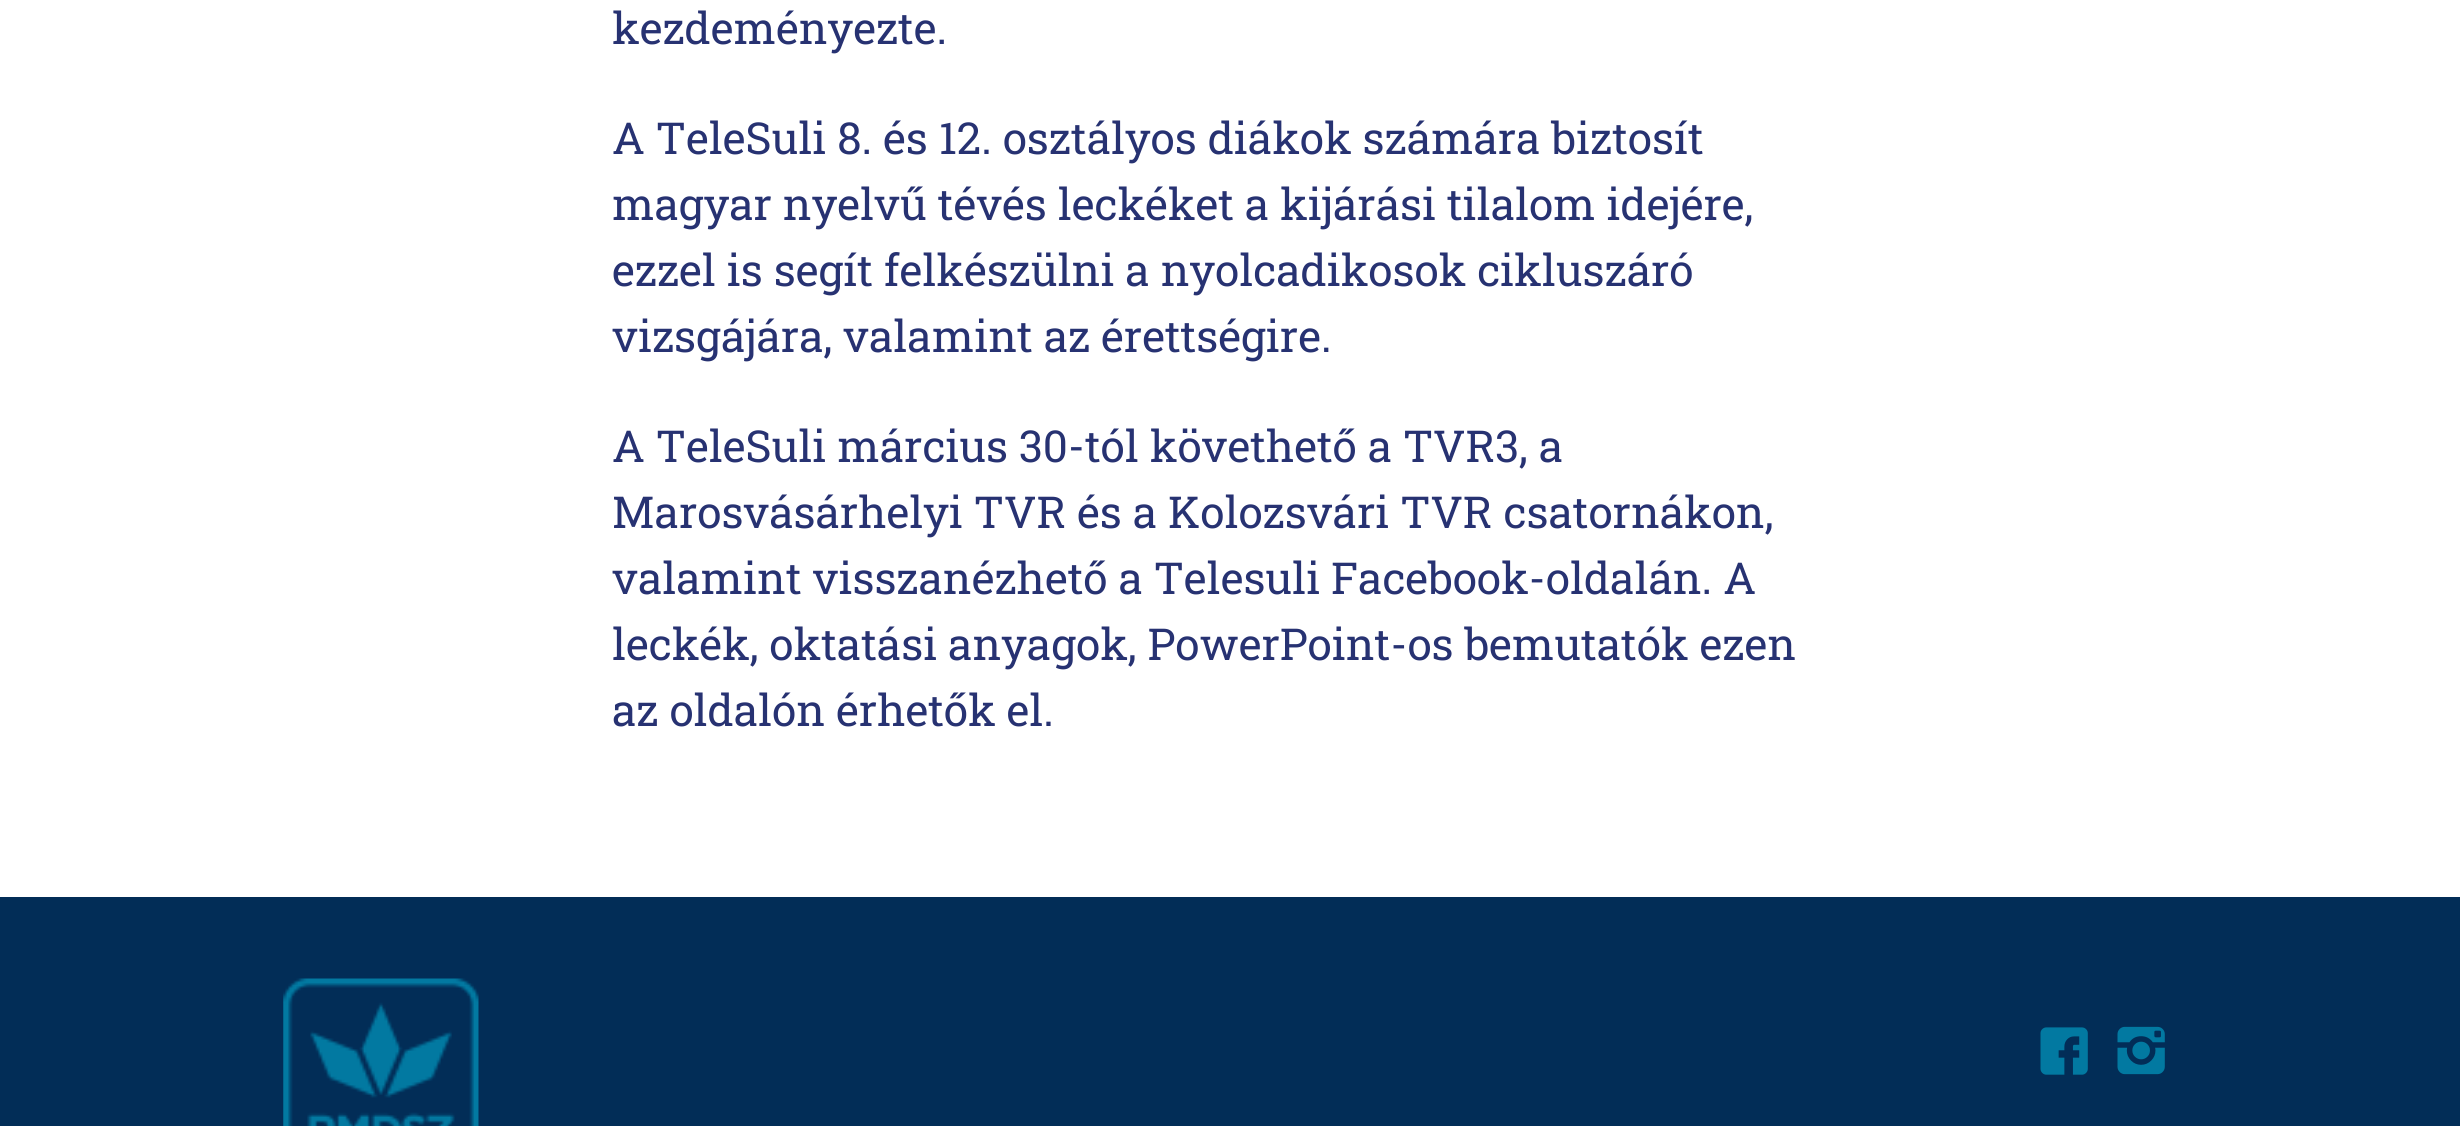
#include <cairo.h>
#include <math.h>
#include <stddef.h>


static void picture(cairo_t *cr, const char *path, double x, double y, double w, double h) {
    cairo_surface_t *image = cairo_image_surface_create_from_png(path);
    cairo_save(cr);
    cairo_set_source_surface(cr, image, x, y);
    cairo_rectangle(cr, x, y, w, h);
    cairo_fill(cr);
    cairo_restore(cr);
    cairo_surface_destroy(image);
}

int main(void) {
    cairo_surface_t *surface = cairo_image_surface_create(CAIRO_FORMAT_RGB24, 2460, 1126);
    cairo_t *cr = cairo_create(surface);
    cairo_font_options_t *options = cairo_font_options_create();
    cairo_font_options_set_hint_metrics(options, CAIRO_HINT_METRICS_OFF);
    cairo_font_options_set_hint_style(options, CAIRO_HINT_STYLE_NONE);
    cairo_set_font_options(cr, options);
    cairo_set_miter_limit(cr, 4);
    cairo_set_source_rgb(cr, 1, 1, 1);
    cairo_paint(cr);
    cairo_select_font_face(cr, "Roboto Slab", CAIRO_FONT_SLANT_NORMAL, CAIRO_FONT_WEIGHT_NORMAL);
    cairo_set_font_size(cr, 44);
    cairo_set_source_rgb(cr, 0.153, 0.196, 0.447);
    cairo_move_to(cr, 612, 44);
    cairo_show_text(cr, "kezdeményezte.");
    cairo_move_to(cr, 612, 154);
    cairo_show_text(cr, "A TeleSuli 8. és 12. osztályos diákok számára biztosít");
    cairo_move_to(cr, 612, 220);
    cairo_show_text(cr, "magyar nyelvű tévés leckéket a kijárási tilalom idejére,");
    cairo_move_to(cr, 612, 286);
    cairo_show_text(cr, "ezzel is segít felkészülni a nyolcadikosok cikluszáró");
    cairo_move_to(cr, 612, 352);
    cairo_show_text(cr, "vizsgájára, valamint az érettségire.");
    cairo_move_to(cr, 612, 462);
    cairo_show_text(cr, "A TeleSuli március 30-tól követhető a TVR3, a");
    cairo_move_to(cr, 612, 528);
    cairo_show_text(cr, "Marosvásárhelyi TVR és a Kolozsvári TVR csatornákon,");
    cairo_move_to(cr, 612, 594);
    cairo_show_text(cr, "valamint visszanézhető a Telesuli Facebook-oldalán. A");
    cairo_move_to(cr, 612, 660);
    cairo_show_text(cr, "leckék, oktatási anyagok, PowerPoint-os bemutatók ezen");
    cairo_move_to(cr, 612, 726);
    cairo_show_text(cr, "az oldalón érhetők el.");
    cairo_set_source_rgb(cr, 0.008, 0.176, 0.341);
    cairo_rectangle(cr, 0, 897, 2460, 229);
    cairo_fill(cr);
    picture(cr, "img1.png", 283, 978, 196, 148);
    picture(cr, "img2.png", 2040, 1027, 48, 48);
    picture(cr, "img3.png", 2117, 1026, 48, 49);
    cairo_surface_write_to_png(surface, "page.png");
    cairo_font_options_destroy(options);
    cairo_destroy(cr);
    cairo_surface_destroy(surface);
    return 0;
}
